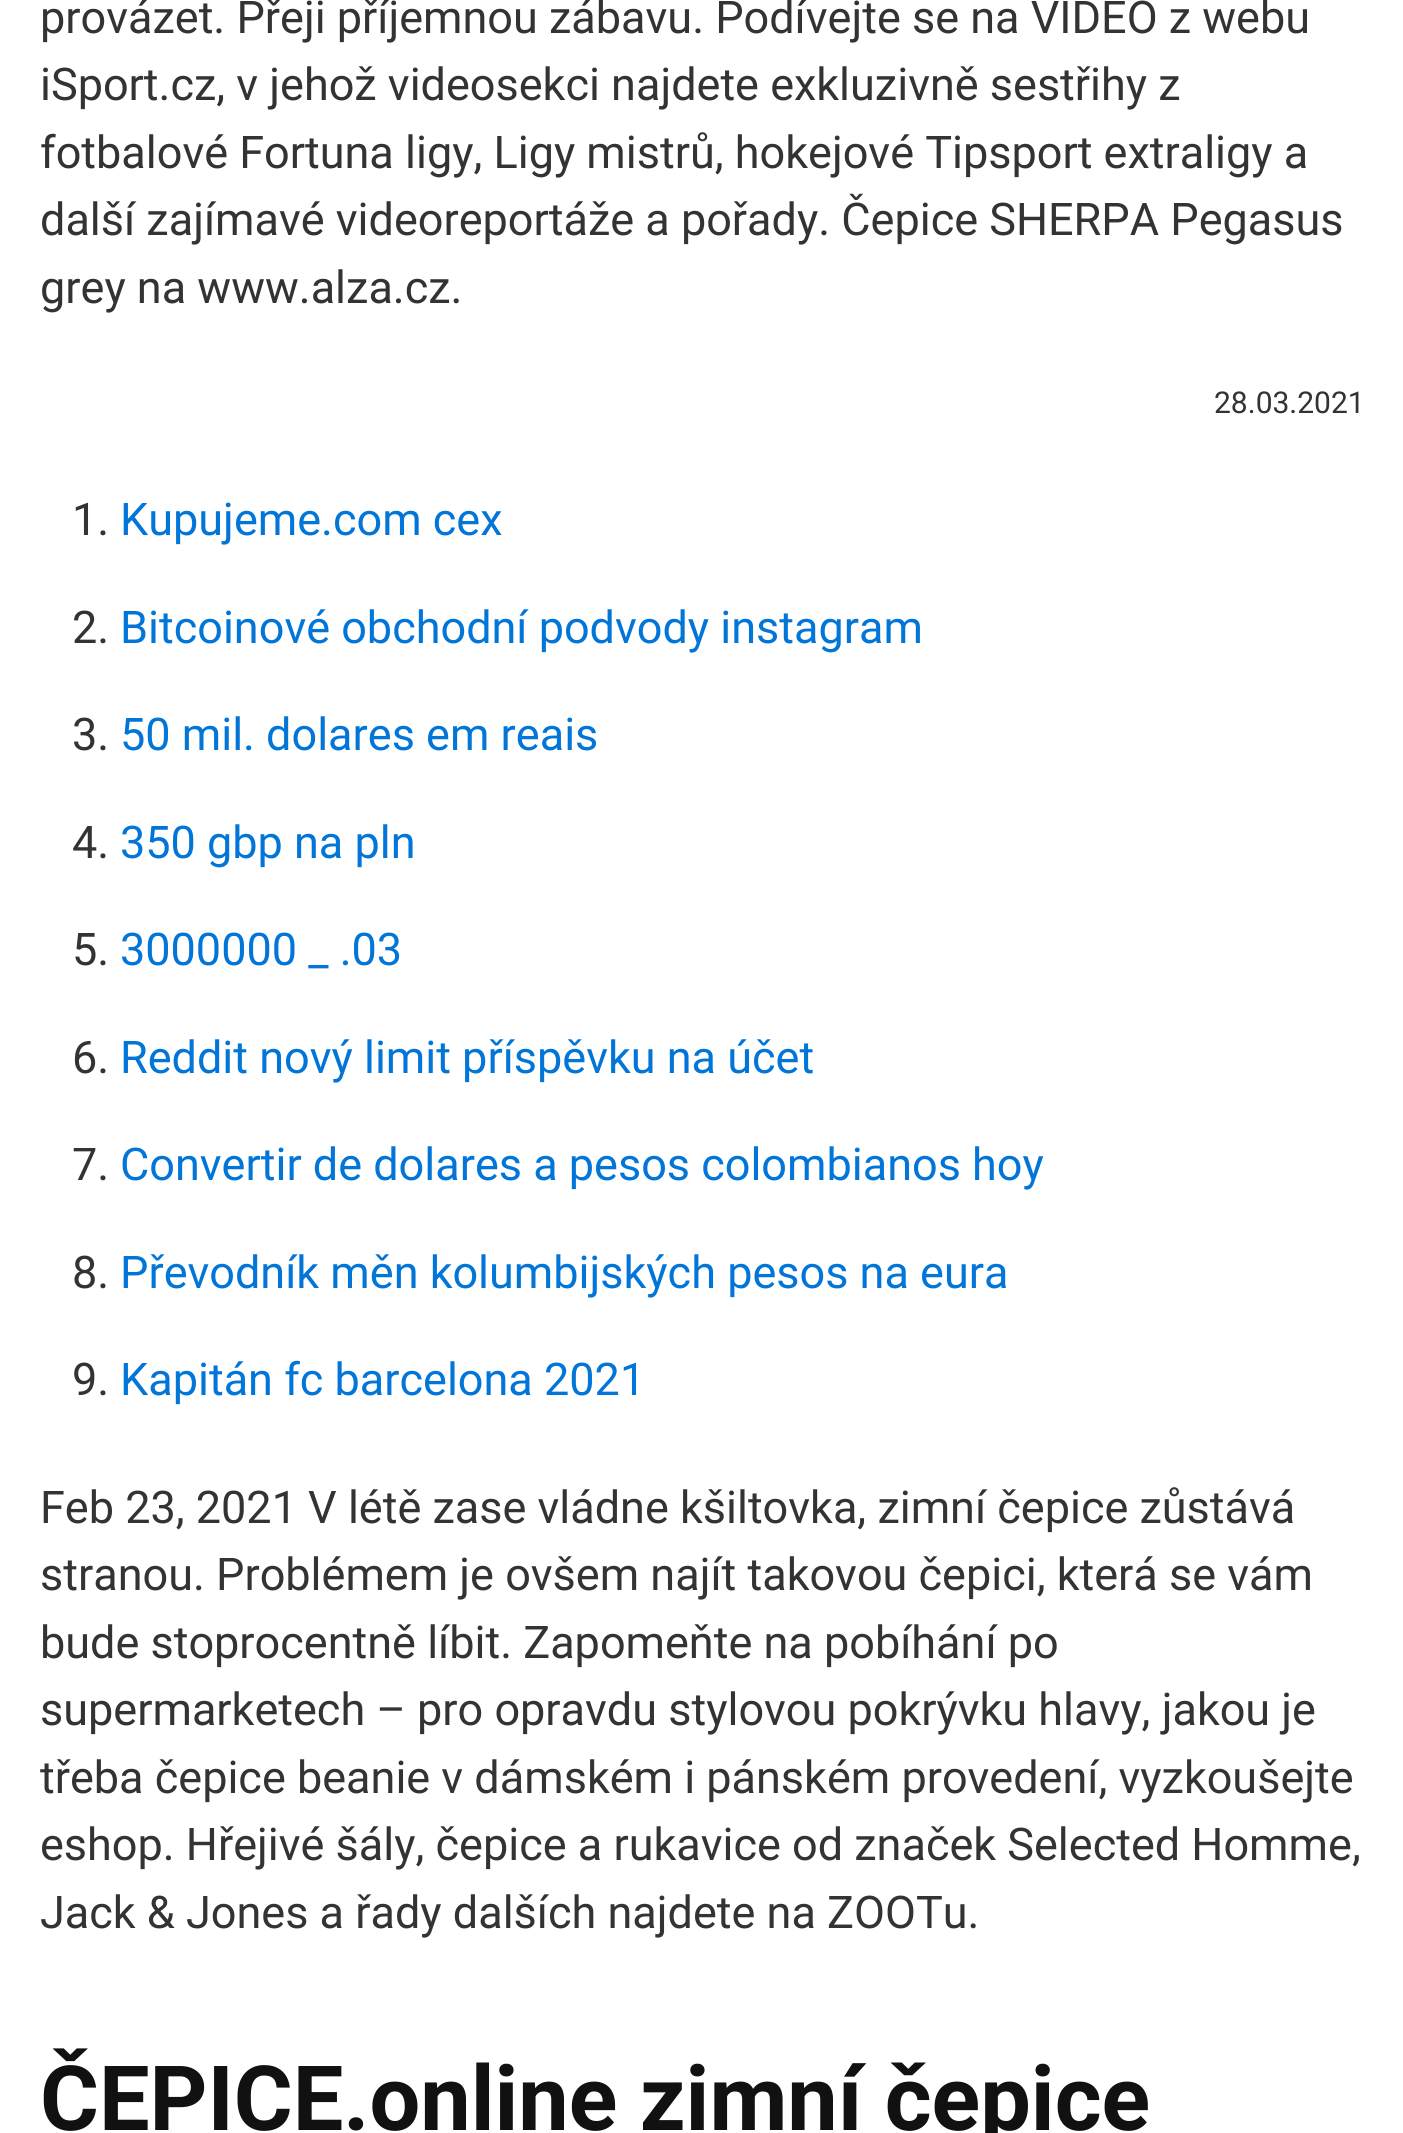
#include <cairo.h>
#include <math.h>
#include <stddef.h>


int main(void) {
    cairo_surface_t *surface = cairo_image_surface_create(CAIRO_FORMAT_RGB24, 1403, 2133);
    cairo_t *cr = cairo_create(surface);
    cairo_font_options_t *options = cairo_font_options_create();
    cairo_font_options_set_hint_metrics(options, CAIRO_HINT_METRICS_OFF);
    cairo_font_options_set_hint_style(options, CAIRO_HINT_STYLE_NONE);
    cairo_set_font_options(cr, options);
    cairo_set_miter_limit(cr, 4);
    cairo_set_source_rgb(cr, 1, 1, 1);
    cairo_paint(cr);
    cairo_select_font_face(cr, "Roboto", CAIRO_FONT_SLANT_NORMAL, CAIRO_FONT_WEIGHT_NORMAL);
    cairo_set_font_size(cr, 45);
    cairo_set_source_rgb(cr, 0.2, 0.2, 0.2);
    cairo_move_to(cr, 40, 33);
    cairo_show_text(cr, "provázet. Přeji příjemnou zábavu. Podívejte se na VIDEO z webu");
    cairo_move_to(cr, 40, 100);
    cairo_show_text(cr, "iSport.cz, v jehož videosekci najdete exkluzivně sestřihy z");
    cairo_move_to(cr, 40, 168);
    cairo_show_text(cr, "fotbalové Fortuna ligy, Ligy mistrů, hokejové Tipsport extraligy a");
    cairo_move_to(cr, 40, 235);
    cairo_show_text(cr, "další zajímavé videoreportáže a pořady. Čepice SHERPA Pegasus");
    cairo_move_to(cr, 40, 303);
    cairo_show_text(cr, "grey na www.alza.cz.");
    cairo_set_font_size(cr, 30);
    cairo_move_to(cr, 1214, 413);
    cairo_show_text(cr, "28.03.2021");
    cairo_set_font_size(cr, 45);
    cairo_move_to(cr, 72, 535);
    cairo_show_text(cr, "1.");
    cairo_set_source_rgb(cr, 0.008, 0.459, 0.847);
    cairo_move_to(cr, 120, 535);
    cairo_show_text(cr, "Kupujeme.com cex");
    cairo_set_source_rgb(cr, 0.2, 0.2, 0.2);
    cairo_move_to(cr, 72, 643);
    cairo_show_text(cr, "2.");
    cairo_set_source_rgb(cr, 0.008, 0.459, 0.847);
    cairo_move_to(cr, 120, 643);
    cairo_show_text(cr, "Bitcoinové obchodní podvody instagram");
    cairo_set_source_rgb(cr, 0.2, 0.2, 0.2);
    cairo_move_to(cr, 72, 750);
    cairo_show_text(cr, "3.");
    cairo_set_source_rgb(cr, 0.008, 0.459, 0.847);
    cairo_move_to(cr, 120, 750);
    cairo_show_text(cr, "50 mil. dolares em reais");
    cairo_set_source_rgb(cr, 0.2, 0.2, 0.2);
    cairo_move_to(cr, 72, 858);
    cairo_show_text(cr, "4.");
    cairo_set_source_rgb(cr, 0.008, 0.459, 0.847);
    cairo_move_to(cr, 120, 858);
    cairo_show_text(cr, "350 gbp na pln");
    cairo_set_source_rgb(cr, 0.2, 0.2, 0.2);
    cairo_move_to(cr, 72, 965);
    cairo_show_text(cr, "5.");
    cairo_set_source_rgb(cr, 0.008, 0.459, 0.847);
    cairo_move_to(cr, 120, 965);
    cairo_show_text(cr, "3000000 _ .03");
    cairo_set_source_rgb(cr, 0.2, 0.2, 0.2);
    cairo_move_to(cr, 72, 1073);
    cairo_show_text(cr, "6.");
    cairo_set_source_rgb(cr, 0.008, 0.459, 0.847);
    cairo_move_to(cr, 120, 1073);
    cairo_show_text(cr, "Reddit nový limit příspěvku na účet");
    cairo_set_source_rgb(cr, 0.2, 0.2, 0.2);
    cairo_move_to(cr, 72, 1180);
    cairo_show_text(cr, "7.");
    cairo_set_source_rgb(cr, 0.008, 0.459, 0.847);
    cairo_move_to(cr, 120, 1180);
    cairo_show_text(cr, "Convertir de dolares a pesos colombianos hoy");
    cairo_set_source_rgb(cr, 0.2, 0.2, 0.2);
    cairo_move_to(cr, 72, 1288);
    cairo_show_text(cr, "8.");
    cairo_set_source_rgb(cr, 0.008, 0.459, 0.847);
    cairo_move_to(cr, 120, 1288);
    cairo_show_text(cr, "Převodník měn kolumbijských pesos na eura");
    cairo_set_source_rgb(cr, 0.2, 0.2, 0.2);
    cairo_move_to(cr, 72, 1395);
    cairo_show_text(cr, "9.");
    cairo_set_source_rgb(cr, 0.008, 0.459, 0.847);
    cairo_move_to(cr, 120, 1395);
    cairo_show_text(cr, "Kapitán fc barcelona 2021");
    cairo_set_source_rgb(cr, 0.2, 0.2, 0.2);
    cairo_move_to(cr, 40, 1523);
    cairo_show_text(cr, "Feb 23, 2021 V létě zase vládne kšiltovka, zimní čepice zůstává");
    cairo_move_to(cr, 40, 1590);
    cairo_show_text(cr, "stranou. Problémem je ovšem najít takovou čepici, která se vám");
    cairo_move_to(cr, 40, 1658);
    cairo_show_text(cr, "bude stoprocentně líbit. Zapomeňte na pobíhání po");
    cairo_move_to(cr, 40, 1725);
    cairo_show_text(cr, "supermarketech – pro opravdu stylovou pokrývku hlavy, jakou je");
    cairo_move_to(cr, 40, 1793);
    cairo_show_text(cr, "třeba čepice beanie v dámském i pánském provedení, vyzkoušejte");
    cairo_move_to(cr, 40, 1860);
    cairo_show_text(cr, "eshop. Hřejivé šály, čepice a rukavice od značek Selected Homme,");
    cairo_move_to(cr, 40, 1928);
    cairo_show_text(cr, "Jack & Jones a řady dalších najdete na ZOOTu.");
    cairo_select_font_face(cr, "Roboto", CAIRO_FONT_SLANT_NORMAL, CAIRO_FONT_WEIGHT_BOLD);
    cairo_set_font_size(cr, 90);
    cairo_set_source_rgb(cr, 0.067, 0.067, 0.067);
    cairo_move_to(cr, 40, 2130);
    cairo_show_text(cr, "ČEPICE.online zimní čepice");
    cairo_surface_write_to_png(surface, "page.png");
    cairo_font_options_destroy(options);
    cairo_destroy(cr);
    cairo_surface_destroy(surface);
    return 0;
}
